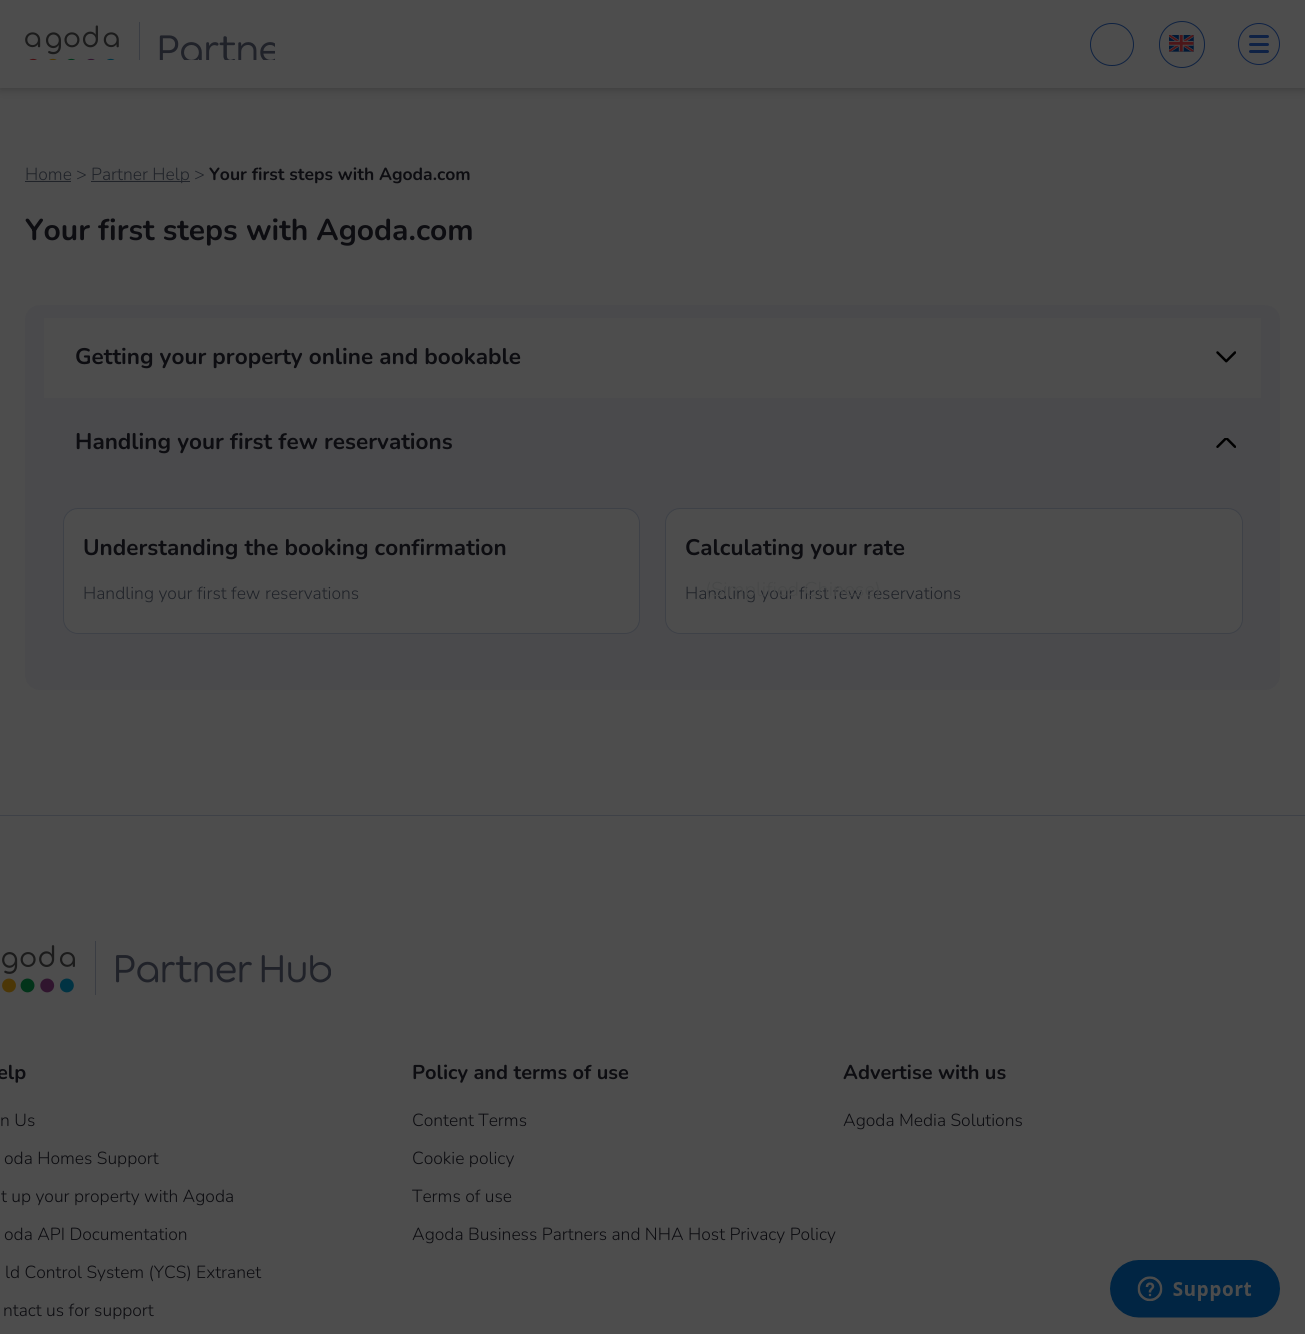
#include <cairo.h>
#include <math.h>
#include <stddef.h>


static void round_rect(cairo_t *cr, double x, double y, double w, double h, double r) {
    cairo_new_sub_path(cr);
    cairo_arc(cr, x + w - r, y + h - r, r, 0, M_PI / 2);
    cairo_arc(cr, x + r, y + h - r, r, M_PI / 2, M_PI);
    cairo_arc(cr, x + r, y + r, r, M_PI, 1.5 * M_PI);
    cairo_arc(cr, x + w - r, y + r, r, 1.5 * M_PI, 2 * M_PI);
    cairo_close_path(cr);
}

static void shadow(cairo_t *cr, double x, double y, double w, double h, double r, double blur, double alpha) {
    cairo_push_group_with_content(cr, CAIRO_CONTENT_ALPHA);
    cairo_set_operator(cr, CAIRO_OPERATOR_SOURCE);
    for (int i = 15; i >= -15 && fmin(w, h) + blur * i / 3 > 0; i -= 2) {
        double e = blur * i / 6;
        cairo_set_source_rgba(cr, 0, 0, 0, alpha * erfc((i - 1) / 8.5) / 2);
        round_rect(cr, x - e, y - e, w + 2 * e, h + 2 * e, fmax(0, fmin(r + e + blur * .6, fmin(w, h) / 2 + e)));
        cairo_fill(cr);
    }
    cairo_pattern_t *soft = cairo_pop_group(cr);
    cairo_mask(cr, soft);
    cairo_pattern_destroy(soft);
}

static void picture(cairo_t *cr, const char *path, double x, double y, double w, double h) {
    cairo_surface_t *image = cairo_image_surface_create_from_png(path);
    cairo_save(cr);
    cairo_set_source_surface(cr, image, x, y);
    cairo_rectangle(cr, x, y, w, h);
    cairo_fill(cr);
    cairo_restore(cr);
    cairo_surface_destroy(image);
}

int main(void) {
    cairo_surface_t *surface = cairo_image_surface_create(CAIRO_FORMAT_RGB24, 1305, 1334);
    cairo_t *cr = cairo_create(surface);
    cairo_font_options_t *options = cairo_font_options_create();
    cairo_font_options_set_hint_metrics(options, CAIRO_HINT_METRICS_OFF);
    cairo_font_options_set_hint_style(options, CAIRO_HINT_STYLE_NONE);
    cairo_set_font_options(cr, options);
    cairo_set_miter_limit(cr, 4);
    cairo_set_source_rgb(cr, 0.302, 0.302, 0.302);
    cairo_paint(cr);
    cairo_set_source_rgb(cr, 0, 0, 0);
    shadow(cr, 0, 3, 1305, 87, 0, 4.5, 0.2);
    cairo_set_source_rgb(cr, 0.302, 0.302, 0.302);
    cairo_rectangle(cr, 0, 0, 1305, 88);
    cairo_fill(cr);
    round_rect(cr, 1090.5, 23.5, 43, 42, 21);
    cairo_set_source_rgb(cr, 0.059, 0.133, 0.255);
    cairo_set_line_width(cr, 1);
    cairo_stroke(cr);
    round_rect(cr, 1159.5, 21.5, 45, 46, 22.5);
    cairo_stroke(cr);
    picture(cr, "img1.png", 1169, 35, 25, 17);
    picture(cr, "img2.png", 25, 22, 250, 38);
    cairo_arc(cr, 1259, 44, 20.5, 0, 2 * M_PI);
    cairo_set_source_rgb(cr, 0.059, 0.133, 0.271);
    cairo_stroke(cr);
    round_rect(cr, 1249, 35, 20, 3, 1.5);
    cairo_fill(cr);
    round_rect(cr, 1249, 43, 20, 3, 1.5);
    cairo_fill(cr);
    round_rect(cr, 1249, 50, 20, 3, 1.5);
    cairo_fill(cr);
    cairo_select_font_face(cr, "Nunito Light", CAIRO_FONT_SLANT_NORMAL, CAIRO_FONT_WEIGHT_NORMAL);
    cairo_set_font_size(cr, 17.5);
    cairo_set_source_rgb(cr, 0.125, 0.137, 0.161);
    cairo_move_to(cr, 25, 180);
    cairo_show_text(cr, "Home >");
    cairo_rectangle(cr, 25, 181, 46, 1);
    cairo_fill(cr);
    cairo_rectangle(cr, 91, 181, 99, 1);
    cairo_fill(cr);
    cairo_move_to(cr, 91, 180);
    cairo_show_text(cr, "Partner Help >");
    cairo_select_font_face(cr, "Nunito", CAIRO_FONT_SLANT_NORMAL, CAIRO_FONT_WEIGHT_BOLD);
    cairo_set_source_rgb(cr, 0.051, 0.051, 0.067);
    cairo_move_to(cr, 209, 180);
    cairo_show_text(cr, "Your first steps with Agoda.com");
    cairo_set_font_size(cr, 30);
    cairo_move_to(cr, 25, 240);
    cairo_show_text(cr, "Your first steps with Agoda.com");
    cairo_set_source_rgb(cr, 0.29, 0.29, 0.298);
    round_rect(cr, 25, 305, 1255, 385, 15);
    cairo_fill(cr);
    cairo_set_source_rgb(cr, 0.302, 0.302, 0.302);
    cairo_rectangle(cr, 44, 318, 1217, 80);
    cairo_fill(cr);
    cairo_set_font_size(cr, 22.5);
    cairo_set_source_rgb(cr, 0.051, 0.051, 0.067);
    cairo_move_to(cr, 75, 364);
    cairo_show_text(cr, "Getting your property online and bookable");
    picture(cr, "img3.png", 1216, 351, 20, 12);
    cairo_move_to(cr, 75, 449);
    cairo_show_text(cr, "Handling your first few reservations");
    picture(cr, "img4.png", 1216, 438, 20, 10);
    cairo_set_source_rgb(cr, 0.302, 0.302, 0.302);
    round_rect(cr, 63.5, 508.5, 576, 125, 14.5);
    cairo_fill_preserve(cr);
    cairo_set_source_rgb(cr, 0.243, 0.255, 0.278);
    cairo_stroke(cr);
    cairo_set_source_rgb(cr, 0.051, 0.051, 0.067);
    cairo_move_to(cr, 83, 555);
    cairo_show_text(cr, "Understanding the booking confirmation");
    cairo_select_font_face(cr, "Nunito Light", CAIRO_FONT_SLANT_NORMAL, CAIRO_FONT_WEIGHT_NORMAL);
    cairo_set_font_size(cr, 17.5);
    cairo_set_source_rgb(cr, 0.125, 0.137, 0.161);
    cairo_move_to(cr, 83, 599);
    cairo_show_text(cr, "Handling your first few reservations");
    cairo_set_source_rgb(cr, 0.302, 0.302, 0.302);
    round_rect(cr, 665.5, 508.5, 577, 125, 14.5);
    cairo_fill_preserve(cr);
    cairo_set_source_rgb(cr, 0.243, 0.255, 0.278);
    cairo_stroke(cr);
    cairo_select_font_face(cr, "Nunito", CAIRO_FONT_SLANT_NORMAL, CAIRO_FONT_WEIGHT_BOLD);
    cairo_set_font_size(cr, 22.5);
    cairo_set_source_rgb(cr, 0.051, 0.051, 0.067);
    cairo_move_to(cr, 685, 555);
    cairo_show_text(cr, "Calculating your rate");
    cairo_select_font_face(cr, "Nunito Light", CAIRO_FONT_SLANT_NORMAL, CAIRO_FONT_WEIGHT_NORMAL);
    cairo_set_font_size(cr, 17.5);
    cairo_set_source_rgb(cr, 0.125, 0.137, 0.161);
    cairo_move_to(cr, 685, 599);
    cairo_show_text(cr, "Handling your first few reservations");
    cairo_set_source_rgb(cr, 0.243, 0.255, 0.278);
    cairo_rectangle(cr, 0, 815, 1305, 1);
    cairo_fill(cr);
    picture(cr, "img5.png", 2, 941, 329, 54);
    cairo_select_font_face(cr, "Nunito", CAIRO_FONT_SLANT_NORMAL, CAIRO_FONT_WEIGHT_BOLD);
    cairo_set_font_size(cr, 20);
    cairo_set_source_rgb(cr, 0.051, 0.051, 0.067);
    cairo_move_to(cr, -3, 1079);
    cairo_show_text(cr, "elp");
    cairo_select_font_face(cr, "Nunito Light", CAIRO_FONT_SLANT_NORMAL, CAIRO_FONT_WEIGHT_NORMAL);
    cairo_set_font_size(cr, 17.5);
    cairo_move_to(cr, 0, 1126);
    cairo_show_text(cr, "n Us");
    cairo_move_to(cr, 4, 1164);
    cairo_show_text(cr, "oda Homes Support");
    cairo_move_to(cr, 1, 1202);
    cairo_show_text(cr, "t up your property with Agoda");
    cairo_move_to(cr, 4, 1240);
    cairo_show_text(cr, "oda API Documentation");
    cairo_move_to(cr, 5, 1278);
    cairo_show_text(cr, "ld Control System (YCS) Extranet");
    cairo_move_to(cr, 3, 1316);
    cairo_show_text(cr, "ntact us for support");
    cairo_select_font_face(cr, "Nunito", CAIRO_FONT_SLANT_NORMAL, CAIRO_FONT_WEIGHT_BOLD);
    cairo_set_font_size(cr, 20);
    cairo_move_to(cr, 412, 1079);
    cairo_show_text(cr, "Policy and terms of use");
    cairo_select_font_face(cr, "Nunito Light", CAIRO_FONT_SLANT_NORMAL, CAIRO_FONT_WEIGHT_NORMAL);
    cairo_set_font_size(cr, 17.5);
    cairo_move_to(cr, 412, 1126);
    cairo_show_text(cr, "Content Terms");
    cairo_move_to(cr, 412, 1164);
    cairo_show_text(cr, "Cookie policy");
    cairo_move_to(cr, 412, 1202);
    cairo_show_text(cr, "Terms of use");
    cairo_move_to(cr, 412, 1240);
    cairo_show_text(cr, "Agoda Business Partners and NHA Host Privacy Policy");
    cairo_select_font_face(cr, "Nunito", CAIRO_FONT_SLANT_NORMAL, CAIRO_FONT_WEIGHT_BOLD);
    cairo_set_font_size(cr, 20);
    cairo_move_to(cr, 843, 1079);
    cairo_show_text(cr, "Advertise with us");
    cairo_select_font_face(cr, "Nunito Light", CAIRO_FONT_SLANT_NORMAL, CAIRO_FONT_WEIGHT_NORMAL);
    cairo_set_font_size(cr, 17.5);
    cairo_move_to(cr, 843, 1126);
    cairo_show_text(cr, "Agoda Media Solutions");
    cairo_set_font_size(cr, 20);
    cairo_set_source_rgb(cr, 0.278, 0.282, 0.282);
    cairo_move_to(cr, 705, 596);
    cairo_show_text(cr, "(");
    cairo_move_to(cr, 711, 596);
    cairo_show_text(cr, "Simplified Chinese)");
    picture(cr, "img6.png", 1110, 1260, 170, 58);
    cairo_surface_write_to_png(surface, "page.png");
    cairo_font_options_destroy(options);
    cairo_destroy(cr);
    cairo_surface_destroy(surface);
    return 0;
}
